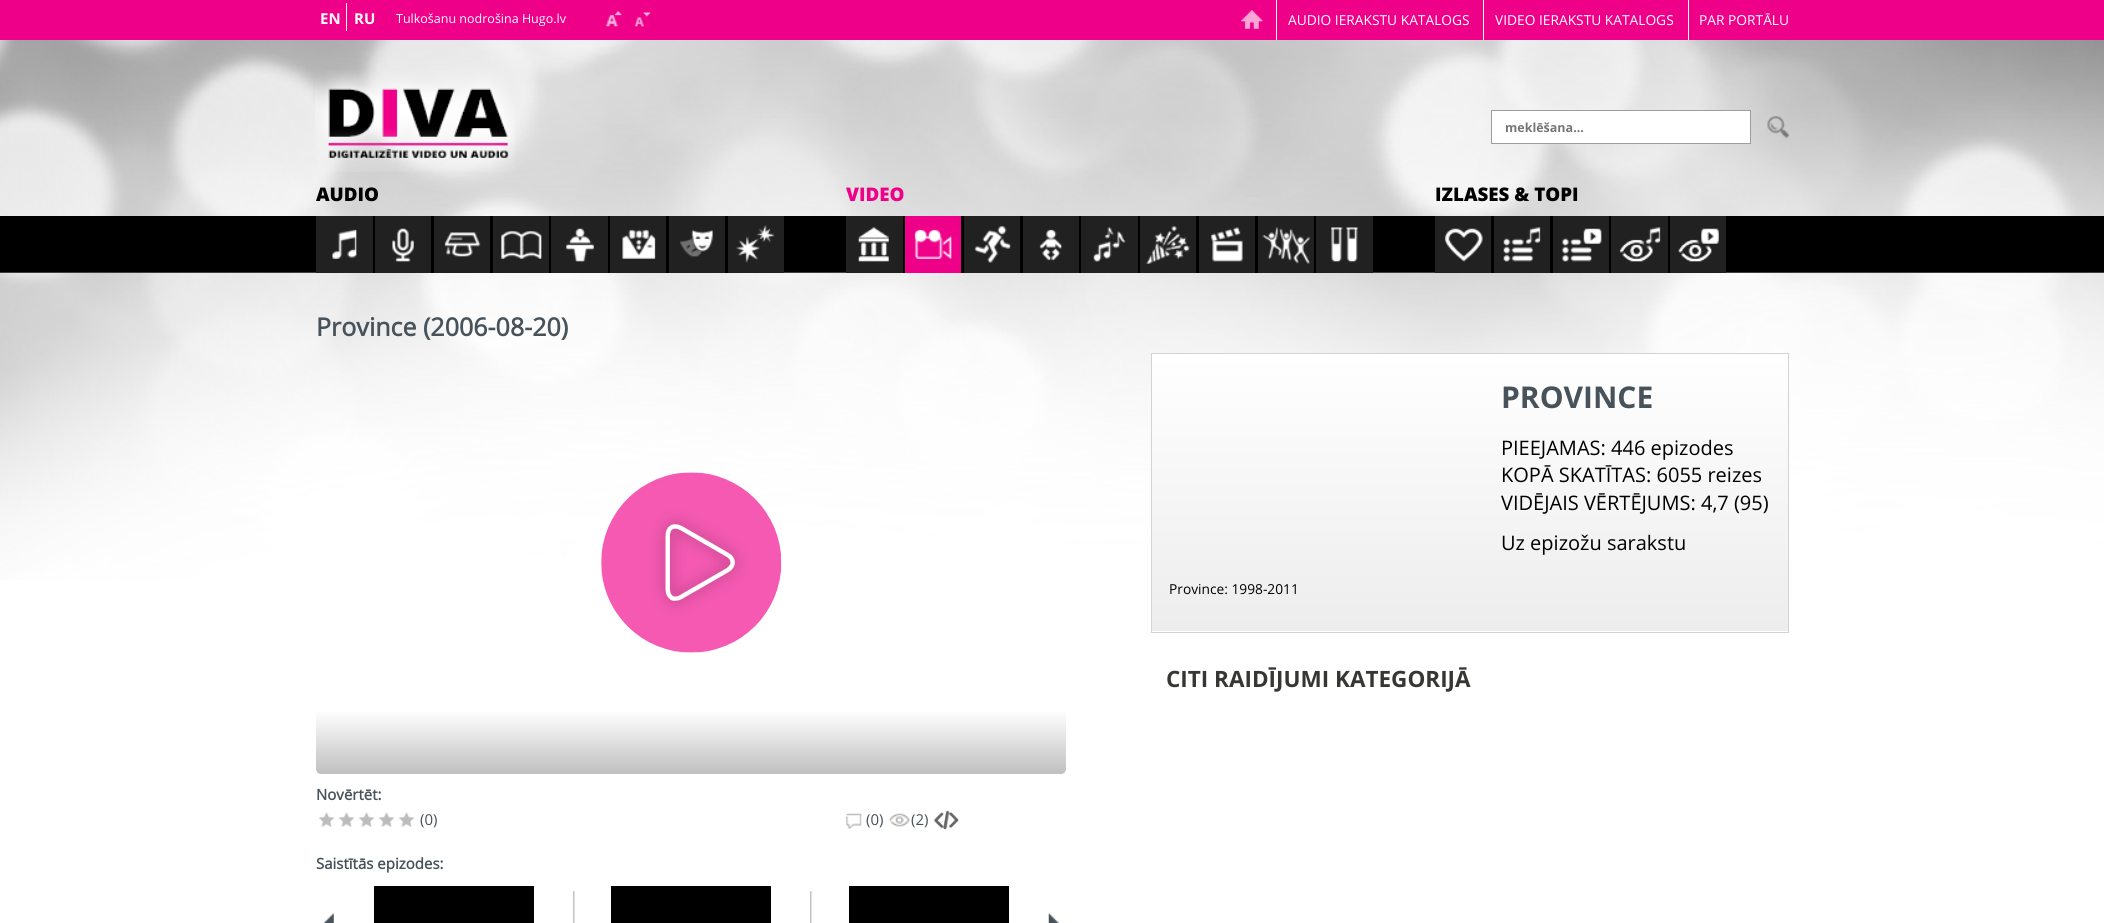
#include <cairo.h>
#include <math.h>
#include <stddef.h>


static void round_rect(cairo_t *cr, double x, double y, double w, double h, double r) {
    cairo_new_sub_path(cr);
    cairo_arc(cr, x + w - r, y + h - r, r, 0, M_PI / 2);
    cairo_arc(cr, x + r, y + h - r, r, M_PI / 2, M_PI);
    cairo_arc(cr, x + r, y + r, r, M_PI, 1.5 * M_PI);
    cairo_arc(cr, x + w - r, y + r, r, 1.5 * M_PI, 2 * M_PI);
    cairo_close_path(cr);
}

static void picture(cairo_t *cr, const char *path, double x, double y, double w, double h) {
    cairo_surface_t *image = cairo_image_surface_create_from_png(path);
    cairo_save(cr);
    cairo_set_source_surface(cr, image, x, y);
    cairo_rectangle(cr, x, y, w, h);
    cairo_fill(cr);
    cairo_restore(cr);
    cairo_surface_destroy(image);
}

int main(void) {
    cairo_surface_t *surface = cairo_image_surface_create(CAIRO_FORMAT_RGB24, 2104, 923);
    cairo_t *cr = cairo_create(surface);
    cairo_font_options_t *options = cairo_font_options_create();
    cairo_font_options_set_hint_metrics(options, CAIRO_HINT_METRICS_OFF);
    cairo_font_options_set_hint_style(options, CAIRO_HINT_STYLE_NONE);
    cairo_set_font_options(cr, options);
    cairo_set_miter_limit(cr, 4);
    cairo_pattern_t *gradient;
    cairo_set_source_rgb(cr, 1, 1, 1);
    cairo_paint(cr);
    picture(cr, "img1.png", 0, 40, 2104, 540);
    cairo_set_source_rgb(cr, 0.937, 0, 0.537);
    cairo_rectangle(cr, 0, 0, 2104, 40);
    cairo_fill(cr);
    cairo_select_font_face(cr, "Open Sans", CAIRO_FONT_SLANT_NORMAL, CAIRO_FONT_WEIGHT_BOLD);
    cairo_set_font_size(cr, 15);
    cairo_set_source_rgb(cr, 1, 1, 1);
    cairo_move_to(cr, 320, 24);
    cairo_show_text(cr, "EN");
    cairo_move_to(cr, 354, 24);
    cairo_show_text(cr, "RU");
    cairo_rectangle(cr, 346, 3, 1, 28);
    cairo_fill(cr);
    cairo_select_font_face(cr, "Open Sans", CAIRO_FONT_SLANT_NORMAL, CAIRO_FONT_WEIGHT_NORMAL);
    cairo_set_font_size(cr, 12.5);
    cairo_move_to(cr, 396, 23);
    cairo_show_text(cr, "Tulkošanu nodrošina Hugo.lv");
    picture(cr, "img2.png", 606, 11, 16, 16);
    picture(cr, "img3.png", 634, 12, 17, 15);
    picture(cr, "img4.png", 315, 70, 200, 102);
    cairo_rectangle(cr, 1491.5, 110.5, 259, 33);
    cairo_fill_preserve(cr);
    cairo_set_source_rgb(cr, 0.616, 0.616, 0.616);
    cairo_set_line_width(cr, 1);
    cairo_stroke(cr);
    cairo_select_font_face(cr, "Open Sans", CAIRO_FONT_SLANT_NORMAL, CAIRO_FONT_WEIGHT_BOLD);
    cairo_set_source_rgb(cr, 0.459, 0.459, 0.459);
    cairo_move_to(cr, 1505, 132);
    cairo_show_text(cr, "meklēšana...");
    picture(cr, "img5.png", 1767, 116, 22, 22);
    picture(cr, "img6.png", 1241, 10, 22, 19);
    cairo_set_source_rgb(cr, 1, 1, 1);
    cairo_rectangle(cr, 1276, 0, 1, 40);
    cairo_fill(cr);
    cairo_select_font_face(cr, "Open Sans", CAIRO_FONT_SLANT_NORMAL, CAIRO_FONT_WEIGHT_NORMAL);
    cairo_set_font_size(cr, 13.75);
    cairo_move_to(cr, 1288, 25);
    cairo_show_text(cr, "AUDIO IERAKSTU KATALOGS");
    cairo_rectangle(cr, 1483, 0, 1, 40);
    cairo_fill(cr);
    cairo_move_to(cr, 1495, 25);
    cairo_show_text(cr, "VIDEO IERAKSTU KATALOGS");
    cairo_rectangle(cr, 1688, 0, 1, 40);
    cairo_fill(cr);
    cairo_move_to(cr, 1699, 25);
    cairo_show_text(cr, "PAR PORTĀLU");
    cairo_set_source_rgb(cr, 0, 0, 0);
    cairo_rectangle(cr, 0, 216, 2104, 56);
    cairo_fill(cr);
    cairo_set_source_rgb(cr, 0.247, 0.247, 0.247);
    cairo_rectangle(cr, 0, 272, 2104, 1);
    cairo_fill(cr);
    cairo_set_source_rgb(cr, 0, 0, 0);
    cairo_rectangle(cr, 373, 272, 355, 1);
    cairo_fill(cr);
    cairo_select_font_face(cr, "Open Sans ExtraBold", CAIRO_FONT_SLANT_NORMAL, CAIRO_FONT_WEIGHT_NORMAL);
    cairo_set_font_size(cr, 18.75);
    cairo_move_to(cr, 316, 201);
    cairo_show_text(cr, "AUDIO");
    cairo_set_source_rgb(cr, 0.129, 0.129, 0.129);
    cairo_rectangle(cr, 316, 216, 57, 57);
    cairo_fill(cr);
    picture(cr, "img7.png", 332, 229, 25, 30);
    cairo_rectangle(cr, 375, 216, 56, 57);
    cairo_fill(cr);
    picture(cr, "img8.png", 392, 228, 22, 34);
    cairo_rectangle(cr, 434, 216, 56, 57);
    cairo_fill(cr);
    picture(cr, "img9.png", 444, 232, 37, 25);
    cairo_rectangle(cr, 493, 216, 56, 57);
    cairo_fill(cr);
    picture(cr, "img10.png", 501, 231, 41, 28);
    cairo_rectangle(cr, 551, 216, 57, 57);
    cairo_fill(cr);
    picture(cr, "img11.png", 566, 228, 28, 34);
    cairo_rectangle(cr, 610, 216, 56, 57);
    cairo_fill(cr);
    picture(cr, "img12.png", 622, 229, 34, 30);
    cairo_rectangle(cr, 669, 216, 56, 57);
    cairo_fill(cr);
    picture(cr, "img13.png", 680, 230, 33, 28);
    cairo_rectangle(cr, 728, 216, 56, 57);
    cairo_fill(cr);
    picture(cr, "img14.png", 736, 225, 39, 38);
    cairo_set_source_rgb(cr, 0, 0, 0);
    cairo_rectangle(cr, 903, 272, 413, 1);
    cairo_fill(cr);
    cairo_set_source_rgb(cr, 0.937, 0, 0.537);
    cairo_move_to(cr, 846, 201);
    cairo_show_text(cr, "VIDEO");
    cairo_set_source_rgb(cr, 0.129, 0.129, 0.129);
    cairo_rectangle(cr, 846, 216, 57, 57);
    cairo_fill(cr);
    picture(cr, "img15.png", 858, 227, 31, 35);
    cairo_set_source_rgb(cr, 0.937, 0, 0.537);
    cairo_rectangle(cr, 905, 216, 56, 57);
    cairo_fill(cr);
    picture(cr, "img16.png", 914, 229, 38, 30);
    cairo_set_source_rgb(cr, 0.129, 0.129, 0.129);
    cairo_rectangle(cr, 964, 216, 56, 57);
    cairo_fill(cr);
    picture(cr, "img17.png", 974, 226, 37, 37);
    cairo_rectangle(cr, 1023, 216, 56, 57);
    cairo_fill(cr);
    picture(cr, "img18.png", 1039, 229, 23, 32);
    cairo_rectangle(cr, 1081, 216, 57, 57);
    cairo_fill(cr);
    picture(cr, "img19.png", 1093, 227, 33, 35);
    cairo_rectangle(cr, 1140, 216, 56, 57);
    cairo_fill(cr);
    picture(cr, "img20.png", 1146, 226, 44, 38);
    cairo_rectangle(cr, 1199, 216, 56, 57);
    cairo_fill(cr);
    picture(cr, "img21.png", 1211, 227, 32, 35);
    cairo_rectangle(cr, 1258, 216, 56, 57);
    cairo_fill(cr);
    picture(cr, "img22.png", 1262, 227, 49, 37);
    cairo_rectangle(cr, 1316, 216, 57, 57);
    cairo_fill(cr);
    picture(cr, "img23.png", 1331, 227, 27, 35);
    cairo_set_source_rgb(cr, 0, 0, 0);
    cairo_rectangle(cr, 1491, 272, 179, 1);
    cairo_fill(cr);
    cairo_move_to(cr, 1435, 201);
    cairo_show_text(cr, "IZLASES & TOPI");
    cairo_set_source_rgb(cr, 0.129, 0.129, 0.129);
    cairo_rectangle(cr, 1435, 216, 56, 57);
    cairo_fill(cr);
    picture(cr, "img24.png", 1444, 228, 39, 34);
    cairo_rectangle(cr, 1494, 216, 56, 57);
    cairo_fill(cr);
    picture(cr, "img25.png", 1503, 227, 38, 35);
    cairo_rectangle(cr, 1553, 216, 56, 57);
    cairo_fill(cr);
    picture(cr, "img26.png", 1562, 228, 40, 34);
    cairo_rectangle(cr, 1611, 216, 57, 57);
    cairo_fill(cr);
    picture(cr, "img27.png", 1619, 227, 42, 35);
    cairo_rectangle(cr, 1670, 216, 56, 57);
    cairo_fill(cr);
    picture(cr, "img28.png", 1678, 228, 41, 34);
    cairo_select_font_face(cr, "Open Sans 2", CAIRO_FONT_SLANT_NORMAL, CAIRO_FONT_WEIGHT_BOLD);
    cairo_set_font_size(cr, 25);
    cairo_set_source_rgb(cr, 0.278, 0.322, 0.353);
    cairo_move_to(cr, 316, 336);
    cairo_show_text(cr, "Province (2006-08-20)");
    gradient = cairo_pattern_create_linear(691, 774, 691, 351);
    cairo_pattern_add_color_stop_rgba(gradient, 0, 0, 0, 0, 0.25);
    cairo_pattern_add_color_stop_rgba(gradient, 0.15, 0, 0, 0, 0);
    cairo_set_source(cr, gradient);
    cairo_pattern_destroy(gradient);
    round_rect(cr, 316, 351, 750, 423, 5);
    cairo_fill(cr);
    picture(cr, "img29.png", 601, 472, 181, 181);
    cairo_set_font_size(cr, 15);
    cairo_set_source_rgb(cr, 0.278, 0.322, 0.353);
    cairo_move_to(cr, 316, 800);
    cairo_show_text(cr, "Novērtēt:");
    picture(cr, "img30.png", 318, 812, 16, 15);
    picture(cr, "img31.png", 338, 812, 16, 15);
    picture(cr, "img31.png", 358, 812, 16, 15);
    picture(cr, "img30.png", 378, 812, 16, 15);
    picture(cr, "img31.png", 398, 812, 16, 15);
    cairo_select_font_face(cr, "Open Sans", CAIRO_FONT_SLANT_NORMAL, CAIRO_FONT_WEIGHT_NORMAL);
    cairo_move_to(cr, 420, 825);
    cairo_show_text(cr, "(0)");
    picture(cr, "img32.png", 846, 813, 16, 16);
    cairo_move_to(cr, 866, 825);
    cairo_show_text(cr, "(0)");
    picture(cr, "img33.png", 888, 813, 22, 14);
    cairo_move_to(cr, 911, 825);
    cairo_show_text(cr, "(2)");
    picture(cr, "img34.png", 933, 810, 26, 20);
    cairo_select_font_face(cr, "Open Sans 2", CAIRO_FONT_SLANT_NORMAL, CAIRO_FONT_WEIGHT_BOLD);
    cairo_move_to(cr, 316, 869);
    cairo_show_text(cr, "Saistītās epizodes:");
    picture(cr, "img35.png", 322, 912, 12, 11);
    cairo_set_source_rgb(cr, 0, 0, 0);
    cairo_rectangle(cr, 374, 886, 160, 37);
    cairo_fill(cr);
    cairo_set_source_rgb(cr, 0.878, 0.878, 0.878);
    cairo_rectangle(cr, 574, 891, 1, 32);
    cairo_fill(cr);
    cairo_set_source_rgb(cr, 0.769, 0.769, 0.769);
    cairo_rectangle(cr, 573, 891, 1, 32);
    cairo_fill(cr);
    cairo_set_source_rgb(cr, 0, 0, 0);
    cairo_rectangle(cr, 611, 886, 160, 37);
    cairo_fill(cr);
    cairo_set_source_rgb(cr, 0.878, 0.878, 0.878);
    cairo_rectangle(cr, 811, 891, 1, 32);
    cairo_fill(cr);
    cairo_set_source_rgb(cr, 0.769, 0.769, 0.769);
    cairo_rectangle(cr, 810, 891, 1, 32);
    cairo_fill(cr);
    cairo_set_source_rgb(cr, 0, 0, 0);
    cairo_rectangle(cr, 849, 886, 160, 37);
    cairo_fill(cr);
    picture(cr, "img36.png", 1048, 912, 12, 11);
    gradient = cairo_pattern_create_linear(1470, 354, 1470, 631);
    cairo_pattern_add_color_stop_rgba(gradient, 0, 1, 1, 1, 1);
    cairo_pattern_add_color_stop_rgba(gradient, 1, 0.929, 0.929, 0.929, 1);
    cairo_set_source(cr, gradient);
    cairo_pattern_destroy(gradient);
    cairo_rectangle(cr, 1152, 354, 636, 277);
    cairo_fill(cr);
    cairo_rectangle(cr, 1151.5, 353.5, 637, 279);
    cairo_set_source_rgb(cr, 0.827, 0.827, 0.827);
    cairo_stroke(cr);
    cairo_select_font_face(cr, "Open Sans", CAIRO_FONT_SLANT_NORMAL, CAIRO_FONT_WEIGHT_BOLD);
    cairo_set_font_size(cr, 30);
    cairo_set_source_rgb(cr, 0.278, 0.322, 0.353);
    cairo_move_to(cr, 1501, 408);
    cairo_show_text(cr, "PROVINCE");
    cairo_select_font_face(cr, "Open Sans", CAIRO_FONT_SLANT_NORMAL, CAIRO_FONT_WEIGHT_NORMAL);
    cairo_set_font_size(cr, 20);
    cairo_set_source_rgb(cr, 0, 0, 0);
    cairo_move_to(cr, 1501, 455);
    cairo_show_text(cr, "PIEEJAMAS: 446 epizodes");
    cairo_move_to(cr, 1501, 482);
    cairo_show_text(cr, "KOPĀ SKATĪTAS: 6055 reizes");
    cairo_move_to(cr, 1501, 510);
    cairo_show_text(cr, "VIDĒJAIS VĒRTĒJUMS: 4,7 (95)");
    cairo_move_to(cr, 1501, 550);
    cairo_show_text(cr, "Uz epizožu sarakstu");
    cairo_set_font_size(cr, 13.75);
    cairo_move_to(cr, 1169, 594);
    cairo_show_text(cr, "Province: 1998-2011");
    cairo_select_font_face(cr, "Open Sans", CAIRO_FONT_SLANT_NORMAL, CAIRO_FONT_WEIGHT_BOLD);
    cairo_set_font_size(cr, 22.5);
    cairo_set_source_rgb(cr, 0.212, 0.212, 0.204);
    cairo_move_to(cr, 1166, 687);
    cairo_show_text(cr, "CITI RAIDĪJUMI KATEGORIJĀ");
    cairo_surface_write_to_png(surface, "page.png");
    cairo_font_options_destroy(options);
    cairo_destroy(cr);
    cairo_surface_destroy(surface);
    return 0;
}
